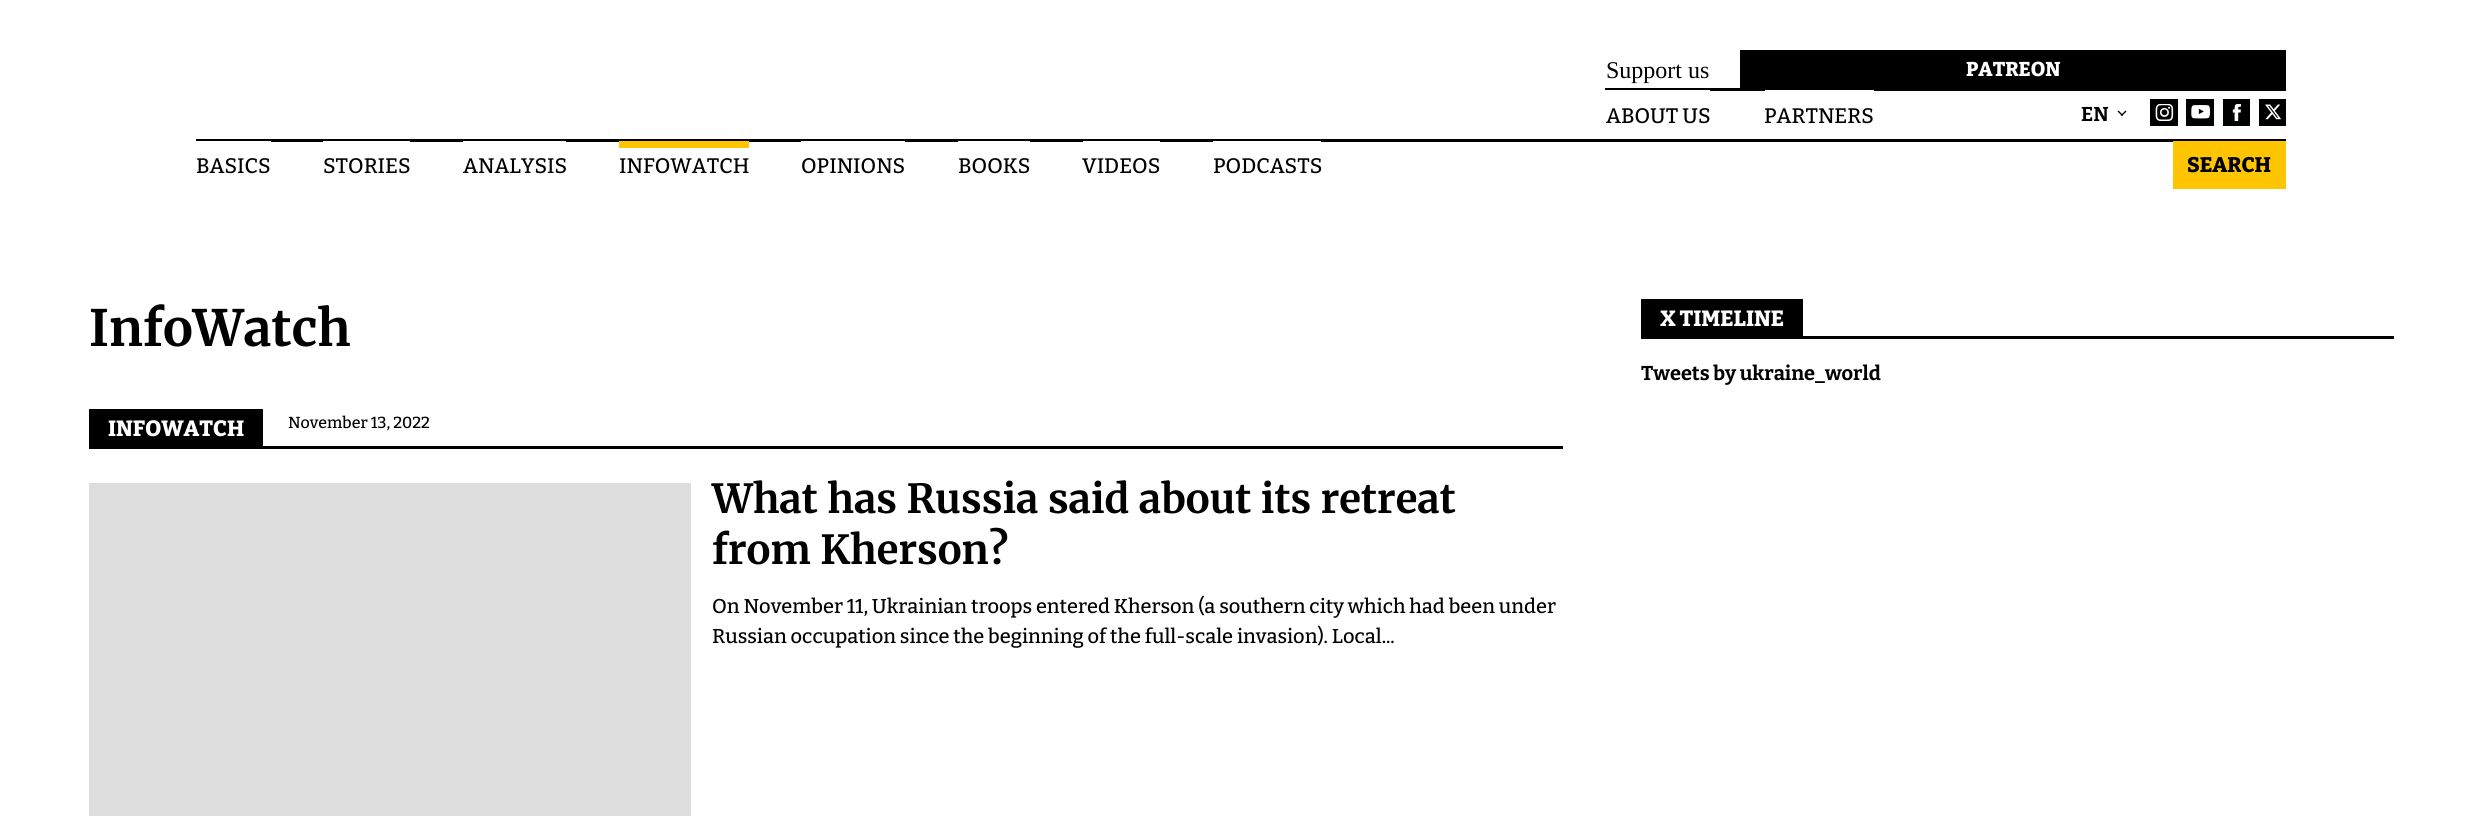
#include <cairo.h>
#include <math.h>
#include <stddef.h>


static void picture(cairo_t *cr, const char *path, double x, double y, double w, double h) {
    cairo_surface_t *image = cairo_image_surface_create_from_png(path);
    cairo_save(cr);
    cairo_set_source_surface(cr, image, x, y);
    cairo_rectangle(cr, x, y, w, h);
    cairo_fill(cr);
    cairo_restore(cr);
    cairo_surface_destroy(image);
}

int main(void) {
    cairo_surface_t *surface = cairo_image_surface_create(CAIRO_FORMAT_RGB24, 2482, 816);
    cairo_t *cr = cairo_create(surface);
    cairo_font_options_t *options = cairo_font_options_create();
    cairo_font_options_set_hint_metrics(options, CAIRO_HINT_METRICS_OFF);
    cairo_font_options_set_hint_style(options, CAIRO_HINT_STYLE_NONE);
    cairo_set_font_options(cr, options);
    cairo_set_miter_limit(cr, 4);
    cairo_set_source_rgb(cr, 1, 1, 1);
    cairo_paint(cr);
    cairo_select_font_face(cr, "Liberation Serif", CAIRO_FONT_SLANT_NORMAL, CAIRO_FONT_WEIGHT_NORMAL);
    cairo_set_font_size(cr, 24);
    cairo_set_source_rgb(cr, 0, 0, 0);
    cairo_move_to(cr, 1606, 78);
    cairo_show_text(cr, "Support us");
    cairo_rectangle(cr, 1740, 50, 546, 38);
    cairo_fill(cr);
    cairo_select_font_face(cr, "Bitter ExtraBold", CAIRO_FONT_SLANT_NORMAL, CAIRO_FONT_WEIGHT_NORMAL);
    cairo_set_font_size(cr, 20);
    cairo_set_source_rgb(cr, 1, 1, 1);
    cairo_move_to(cr, 1966, 76);
    cairo_show_text(cr, "PATREON");
    cairo_set_source_rgb(cr, 0, 0, 0);
    cairo_rectangle(cr, 1605, 88, 681, 3);
    cairo_fill(cr);
    cairo_set_source_rgb(cr, 1, 1, 1);
    cairo_rectangle(cr, 1605, 90, 105, 1);
    cairo_fill(cr);
    cairo_select_font_face(cr, "Bitter Medium", CAIRO_FONT_SLANT_NORMAL, CAIRO_FONT_WEIGHT_NORMAL);
    cairo_set_font_size(cr, 21);
    cairo_set_source_rgb(cr, 0, 0, 0);
    cairo_move_to(cr, 1606, 123);
    cairo_show_text(cr, "ABOUT US");
    cairo_set_source_rgb(cr, 1, 1, 1);
    cairo_rectangle(cr, 1765, 90, 109, 1);
    cairo_fill(cr);
    cairo_set_source_rgb(cr, 0, 0, 0);
    cairo_move_to(cr, 1764, 123);
    cairo_show_text(cr, "PARTNERS");
    cairo_select_font_face(cr, "Bitter", CAIRO_FONT_SLANT_NORMAL, CAIRO_FONT_WEIGHT_BOLD);
    cairo_set_font_size(cr, 20);
    cairo_move_to(cr, 2081, 121);
    cairo_show_text(cr, "EN");
    cairo_new_path(cr);
    cairo_move_to(cr, 2125.5, 110.5);
    cairo_line_to(cr, 2126.5, 111.5);
    cairo_line_to(cr, 2122, 116);
    cairo_line_to(cr, 2121, 115);
    cairo_close_path(cr);
    cairo_fill(cr);
    cairo_new_path(cr);
    cairo_move_to(cr, 2118.5, 110.5);
    cairo_line_to(cr, 2123, 115);
    cairo_line_to(cr, 2122, 116);
    cairo_line_to(cr, 2117.5, 111.5);
    cairo_close_path(cr);
    cairo_fill(cr);
    cairo_rectangle(cr, 2150, 99, 28, 27);
    cairo_fill(cr);
    picture(cr, "img1.png", 2155, 104, 19, 17);
    cairo_rectangle(cr, 2186, 99, 28, 27);
    cairo_fill(cr);
    picture(cr, "img2.png", 2191, 105, 19, 14);
    cairo_rectangle(cr, 2223, 99, 27, 27);
    cairo_fill(cr);
    picture(cr, "img3.png", 2232, 104, 9, 17);
    cairo_rectangle(cr, 2259, 99, 27, 27);
    cairo_fill(cr);
    picture(cr, "img4.png", 2265, 104, 16, 16);
    cairo_rectangle(cr, 196, 139, 2090, 3);
    cairo_fill(cr);
    cairo_set_source_rgb(cr, 1, 1, 1);
    cairo_rectangle(cr, 196, 141, 75, 1);
    cairo_fill(cr);
    cairo_select_font_face(cr, "Bitter Medium", CAIRO_FONT_SLANT_NORMAL, CAIRO_FONT_WEIGHT_NORMAL);
    cairo_set_font_size(cr, 21);
    cairo_set_source_rgb(cr, 0, 0, 0);
    cairo_move_to(cr, 196, 173);
    cairo_show_text(cr, "BASICS");
    cairo_set_source_rgb(cr, 1, 1, 1);
    cairo_rectangle(cr, 323, 141, 87, 1);
    cairo_fill(cr);
    cairo_set_source_rgb(cr, 0, 0, 0);
    cairo_move_to(cr, 323, 173);
    cairo_show_text(cr, "STORIES");
    cairo_set_source_rgb(cr, 1, 1, 1);
    cairo_rectangle(cr, 463, 141, 103, 1);
    cairo_fill(cr);
    cairo_set_source_rgb(cr, 0, 0, 0);
    cairo_move_to(cr, 463, 173);
    cairo_show_text(cr, "ANALYSIS");
    cairo_set_source_rgb(cr, 1, 0.773, 0);
    cairo_rectangle(cr, 619, 141, 130, 7);
    cairo_fill(cr);
    cairo_set_source_rgb(cr, 0, 0, 0);
    cairo_move_to(cr, 619, 173);
    cairo_show_text(cr, "INFOWATCH");
    cairo_set_source_rgb(cr, 1, 1, 1);
    cairo_rectangle(cr, 801, 141, 104, 1);
    cairo_fill(cr);
    cairo_set_source_rgb(cr, 0, 0, 0);
    cairo_move_to(cr, 801, 173);
    cairo_show_text(cr, "OPINIONS");
    cairo_set_source_rgb(cr, 1, 1, 1);
    cairo_rectangle(cr, 958, 141, 72, 1);
    cairo_fill(cr);
    cairo_set_source_rgb(cr, 0, 0, 0);
    cairo_move_to(cr, 958, 173);
    cairo_show_text(cr, "BOOKS");
    cairo_set_source_rgb(cr, 1, 1, 1);
    cairo_rectangle(cr, 1083, 141, 77, 1);
    cairo_fill(cr);
    cairo_set_source_rgb(cr, 0, 0, 0);
    cairo_move_to(cr, 1082, 173);
    cairo_show_text(cr, "VIDEOS");
    cairo_set_source_rgb(cr, 1, 1, 1);
    cairo_rectangle(cr, 1213, 141, 108, 1);
    cairo_fill(cr);
    cairo_set_source_rgb(cr, 0, 0, 0);
    cairo_move_to(cr, 1213, 173);
    cairo_show_text(cr, "PODCASTS");
    cairo_set_source_rgb(cr, 1, 0.773, 0);
    cairo_rectangle(cr, 2173, 141, 113, 48);
    cairo_fill(cr);
    cairo_select_font_face(cr, "Bitter ExtraBold", CAIRO_FONT_SLANT_NORMAL, CAIRO_FONT_WEIGHT_NORMAL);
    cairo_set_source_rgb(cr, 0, 0, 0);
    cairo_move_to(cr, 2187, 172);
    cairo_show_text(cr, "SEARCH");
    cairo_select_font_face(cr, "Merriweather Light", CAIRO_FONT_SLANT_NORMAL, CAIRO_FONT_WEIGHT_NORMAL);
    cairo_set_font_size(cr, 50);
    cairo_move_to(cr, 89, 346);
    cairo_show_text(cr, "InfoWatch");
    cairo_rectangle(cr, 89, 409, 174, 37);
    cairo_fill(cr);
    cairo_select_font_face(cr, "Bitter ExtraBold", CAIRO_FONT_SLANT_NORMAL, CAIRO_FONT_WEIGHT_NORMAL);
    cairo_set_font_size(cr, 22);
    cairo_set_source_rgb(cr, 1, 1, 1);
    cairo_move_to(cr, 108, 436);
    cairo_show_text(cr, "INFOWATCH");
    cairo_select_font_face(cr, "Bitter Medium", CAIRO_FONT_SLANT_NORMAL, CAIRO_FONT_WEIGHT_NORMAL);
    cairo_set_font_size(cr, 16);
    cairo_set_source_rgb(cr, 0, 0, 0);
    cairo_move_to(cr, 288, 428);
    cairo_show_text(cr, "November 13, 2022");
    cairo_rectangle(cr, 89, 446, 1474, 3);
    cairo_fill(cr);
    cairo_set_source_rgb(cr, 0.867, 0.867, 0.867);
    cairo_rectangle(cr, 89, 483, 602, 333);
    cairo_fill(cr);
    cairo_select_font_face(cr, "Merriweather Light", CAIRO_FONT_SLANT_NORMAL, CAIRO_FONT_WEIGHT_NORMAL);
    cairo_set_font_size(cr, 40);
    cairo_set_source_rgb(cr, 0, 0, 0);
    cairo_move_to(cr, 712, 513);
    cairo_show_text(cr, "What has Russia said about its retreat");
    cairo_move_to(cr, 712, 564);
    cairo_show_text(cr, "from Kherson?");
    cairo_select_font_face(cr, "Bitter Medium", CAIRO_FONT_SLANT_NORMAL, CAIRO_FONT_WEIGHT_NORMAL);
    cairo_set_font_size(cr, 20);
    cairo_move_to(cr, 712, 613);
    cairo_show_text(cr, "On November 11, Ukrainian troops entered Kherson (a southern city which had been under");
    cairo_move_to(cr, 712, 643);
    cairo_show_text(cr, "Russian occupation since the beginning of the full-scale invasion). Local...");
    cairo_rectangle(cr, 1641, 299, 162, 37);
    cairo_fill(cr);
    cairo_select_font_face(cr, "Bitter ExtraBold", CAIRO_FONT_SLANT_NORMAL, CAIRO_FONT_WEIGHT_NORMAL);
    cairo_set_font_size(cr, 22);
    cairo_set_source_rgb(cr, 1, 1, 1);
    cairo_move_to(cr, 1660, 326);
    cairo_show_text(cr, "X TIMELINE");
    cairo_set_source_rgb(cr, 0, 0, 0);
    cairo_rectangle(cr, 1641, 336, 753, 3);
    cairo_fill(cr);
    cairo_select_font_face(cr, "Bitter", CAIRO_FONT_SLANT_NORMAL, CAIRO_FONT_WEIGHT_BOLD);
    cairo_set_font_size(cr, 20);
    cairo_move_to(cr, 1641, 380);
    cairo_show_text(cr, "Tweets by ukraine_world");
    cairo_surface_write_to_png(surface, "page.png");
    cairo_font_options_destroy(options);
    cairo_destroy(cr);
    cairo_surface_destroy(surface);
    return 0;
}
